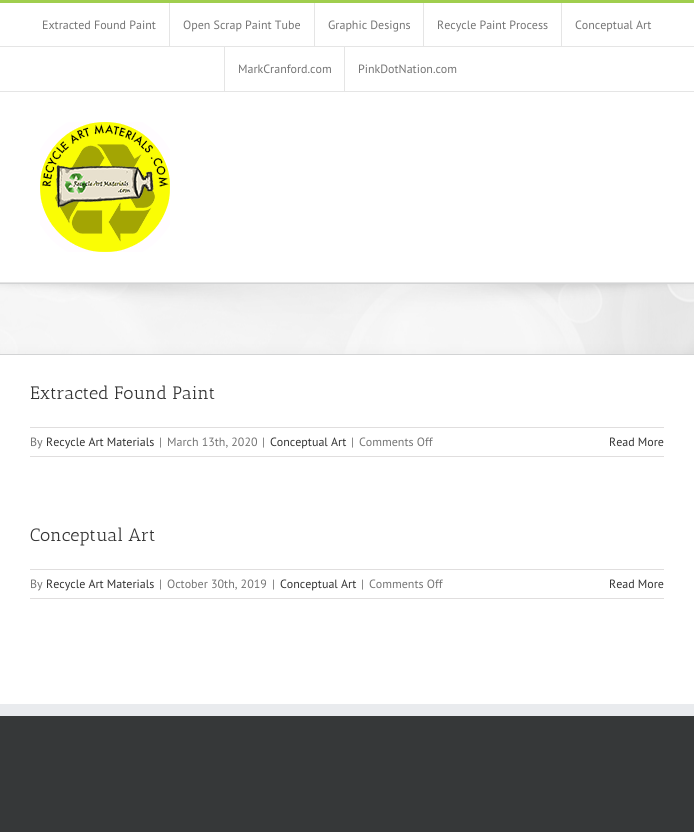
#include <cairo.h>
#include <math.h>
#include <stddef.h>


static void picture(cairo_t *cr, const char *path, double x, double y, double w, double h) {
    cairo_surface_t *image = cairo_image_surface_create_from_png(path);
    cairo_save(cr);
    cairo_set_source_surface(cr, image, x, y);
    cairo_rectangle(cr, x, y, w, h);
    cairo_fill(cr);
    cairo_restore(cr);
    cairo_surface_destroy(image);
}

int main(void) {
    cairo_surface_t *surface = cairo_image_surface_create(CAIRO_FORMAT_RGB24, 694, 832);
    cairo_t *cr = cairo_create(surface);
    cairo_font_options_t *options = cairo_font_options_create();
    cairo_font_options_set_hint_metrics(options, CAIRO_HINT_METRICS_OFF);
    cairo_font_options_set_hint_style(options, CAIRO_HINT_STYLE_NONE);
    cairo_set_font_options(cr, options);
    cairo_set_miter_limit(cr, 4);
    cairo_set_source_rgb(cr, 1, 1, 1);
    cairo_paint(cr);
    cairo_set_source_rgb(cr, 0.627, 0.808, 0.306);
    cairo_rectangle(cr, 0, 0, 694, 3);
    cairo_fill(cr);
    cairo_set_source_rgb(cr, 0.898, 0.898, 0.898);
    cairo_rectangle(cr, 0, 91, 694, 1);
    cairo_fill(cr);
    cairo_select_font_face(cr, "PT Sans", CAIRO_FONT_SLANT_NORMAL, CAIRO_FONT_WEIGHT_NORMAL);
    cairo_set_font_size(cr, 12);
    cairo_set_source_rgb(cr, 0.455, 0.455, 0.455);
    cairo_move_to(cr, 42, 29);
    cairo_show_text(cr, "Extracted Found Paint");
    cairo_set_source_rgb(cr, 0.898, 0.898, 0.898);
    cairo_rectangle(cr, 169, 3, 1, 44);
    cairo_fill(cr);
    cairo_set_source_rgb(cr, 0.455, 0.455, 0.455);
    cairo_move_to(cr, 183, 29);
    cairo_show_text(cr, "Open Scrap Paint Tube");
    cairo_set_source_rgb(cr, 0.898, 0.898, 0.898);
    cairo_rectangle(cr, 314, 3, 1, 44);
    cairo_fill(cr);
    cairo_set_source_rgb(cr, 0.455, 0.455, 0.455);
    cairo_move_to(cr, 328, 29);
    cairo_show_text(cr, "Graphic Designs");
    cairo_set_source_rgb(cr, 0.898, 0.898, 0.898);
    cairo_rectangle(cr, 423, 3, 1, 44);
    cairo_fill(cr);
    cairo_set_source_rgb(cr, 0.455, 0.455, 0.455);
    cairo_move_to(cr, 437, 29);
    cairo_show_text(cr, "Recycle Paint Process");
    cairo_set_source_rgb(cr, 0.898, 0.898, 0.898);
    cairo_rectangle(cr, 561, 3, 1, 44);
    cairo_fill(cr);
    cairo_set_source_rgb(cr, 0.455, 0.455, 0.455);
    cairo_move_to(cr, 575, 29);
    cairo_show_text(cr, "Conceptual Art");
    cairo_set_source_rgb(cr, 0.898, 0.898, 0.898);
    cairo_rectangle(cr, 0, 46, 694, 1);
    cairo_fill(cr);
    cairo_rectangle(cr, 224, 47, 1, 44);
    cairo_fill(cr);
    cairo_set_source_rgb(cr, 0.455, 0.455, 0.455);
    cairo_move_to(cr, 238, 73);
    cairo_show_text(cr, "MarkCranford.com");
    cairo_set_source_rgb(cr, 0.898, 0.898, 0.898);
    cairo_rectangle(cr, 344, 47, 1, 44);
    cairo_fill(cr);
    cairo_set_source_rgb(cr, 0.455, 0.455, 0.455);
    cairo_move_to(cr, 358, 73);
    cairo_show_text(cr, "PinkDotNation.com");
    cairo_set_source_rgb(cr, 0.898, 0.898, 0.898);
    cairo_rectangle(cr, 0, 282, 694, 1);
    cairo_fill(cr);
    picture(cr, "img1.png", 40, 122, 130, 130);
    cairo_set_source_rgb(cr, 0.965, 0.965, 0.965);
    cairo_rectangle(cr, 0, 284, 694, 70);
    cairo_fill(cr);
    picture(cr, "img2.png", 0, 284, 694, 70);
    cairo_set_source_rgb(cr, 0.824, 0.827, 0.831);
    cairo_rectangle(cr, 0, 283, 694, 1);
    cairo_fill(cr);
    cairo_rectangle(cr, 0, 354, 694, 1);
    cairo_fill(cr);
    cairo_select_font_face(cr, "Antic Slab", CAIRO_FONT_SLANT_NORMAL, CAIRO_FONT_WEIGHT_NORMAL);
    cairo_set_font_size(cr, 18);
    cairo_set_source_rgb(cr, 0.2, 0.2, 0.2);
    cairo_move_to(cr, 30, 399);
    cairo_show_text(cr, "Extracted Found Paint");
    cairo_set_source_rgb(cr, 0.878, 0.871, 0.871);
    cairo_rectangle(cr, 30, 427, 634, 1);
    cairo_fill(cr);
    cairo_rectangle(cr, 30, 456, 634, 1);
    cairo_fill(cr);
    cairo_select_font_face(cr, "PT Sans", CAIRO_FONT_SLANT_NORMAL, CAIRO_FONT_WEIGHT_NORMAL);
    cairo_set_font_size(cr, 12);
    cairo_set_source_rgb(cr, 0.455, 0.455, 0.455);
    cairo_move_to(cr, 30, 446);
    cairo_show_text(cr, "By");
    cairo_set_source_rgb(cr, 0.2, 0.2, 0.2);
    cairo_move_to(cr, 46, 446);
    cairo_show_text(cr, "Recycle Art Materials");
    cairo_set_source_rgb(cr, 0.455, 0.455, 0.455);
    cairo_move_to(cr, 159, 446);
    cairo_show_text(cr, "|");
    cairo_move_to(cr, 167, 446);
    cairo_show_text(cr, "March 13th, 2020");
    cairo_move_to(cr, 262, 446);
    cairo_show_text(cr, "|");
    cairo_set_source_rgb(cr, 0.2, 0.2, 0.2);
    cairo_move_to(cr, 270, 446);
    cairo_show_text(cr, "Conceptual Art");
    cairo_set_source_rgb(cr, 0.455, 0.455, 0.455);
    cairo_move_to(cr, 351, 446);
    cairo_show_text(cr, "|");
    cairo_move_to(cr, 359, 446);
    cairo_show_text(cr, "Comments Off");
    cairo_set_source_rgb(cr, 0.2, 0.2, 0.2);
    cairo_move_to(cr, 609, 446);
    cairo_show_text(cr, "Read More");
    cairo_select_font_face(cr, "Antic Slab", CAIRO_FONT_SLANT_NORMAL, CAIRO_FONT_WEIGHT_NORMAL);
    cairo_set_font_size(cr, 18);
    cairo_move_to(cr, 30, 541);
    cairo_show_text(cr, "Conceptual Art");
    cairo_set_source_rgb(cr, 0.878, 0.871, 0.871);
    cairo_rectangle(cr, 30, 569, 634, 1);
    cairo_fill(cr);
    cairo_rectangle(cr, 30, 598, 634, 1);
    cairo_fill(cr);
    cairo_select_font_face(cr, "PT Sans", CAIRO_FONT_SLANT_NORMAL, CAIRO_FONT_WEIGHT_NORMAL);
    cairo_set_font_size(cr, 12);
    cairo_set_source_rgb(cr, 0.455, 0.455, 0.455);
    cairo_move_to(cr, 30, 588);
    cairo_show_text(cr, "By");
    cairo_set_source_rgb(cr, 0.2, 0.2, 0.2);
    cairo_move_to(cr, 46, 588);
    cairo_show_text(cr, "Recycle Art Materials");
    cairo_set_source_rgb(cr, 0.455, 0.455, 0.455);
    cairo_move_to(cr, 159, 588);
    cairo_show_text(cr, "|");
    cairo_move_to(cr, 167, 588);
    cairo_show_text(cr, "October 30th, 2019");
    cairo_move_to(cr, 272, 588);
    cairo_show_text(cr, "|");
    cairo_set_source_rgb(cr, 0.2, 0.2, 0.2);
    cairo_move_to(cr, 280, 588);
    cairo_show_text(cr, "Conceptual Art");
    cairo_set_source_rgb(cr, 0.455, 0.455, 0.455);
    cairo_move_to(cr, 361, 588);
    cairo_show_text(cr, "|");
    cairo_move_to(cr, 369, 588);
    cairo_show_text(cr, "Comments Off");
    cairo_set_source_rgb(cr, 0.2, 0.2, 0.2);
    cairo_move_to(cr, 609, 588);
    cairo_show_text(cr, "Read More");
    cairo_set_source_rgb(cr, 0.212, 0.22, 0.224);
    cairo_rectangle(cr, 0, 716, 694, 116);
    cairo_fill(cr);
    cairo_set_source_rgb(cr, 0.914, 0.918, 0.933);
    cairo_rectangle(cr, 0, 704, 694, 12);
    cairo_fill(cr);
    cairo_surface_write_to_png(surface, "page.png");
    cairo_font_options_destroy(options);
    cairo_destroy(cr);
    cairo_surface_destroy(surface);
    return 0;
}
